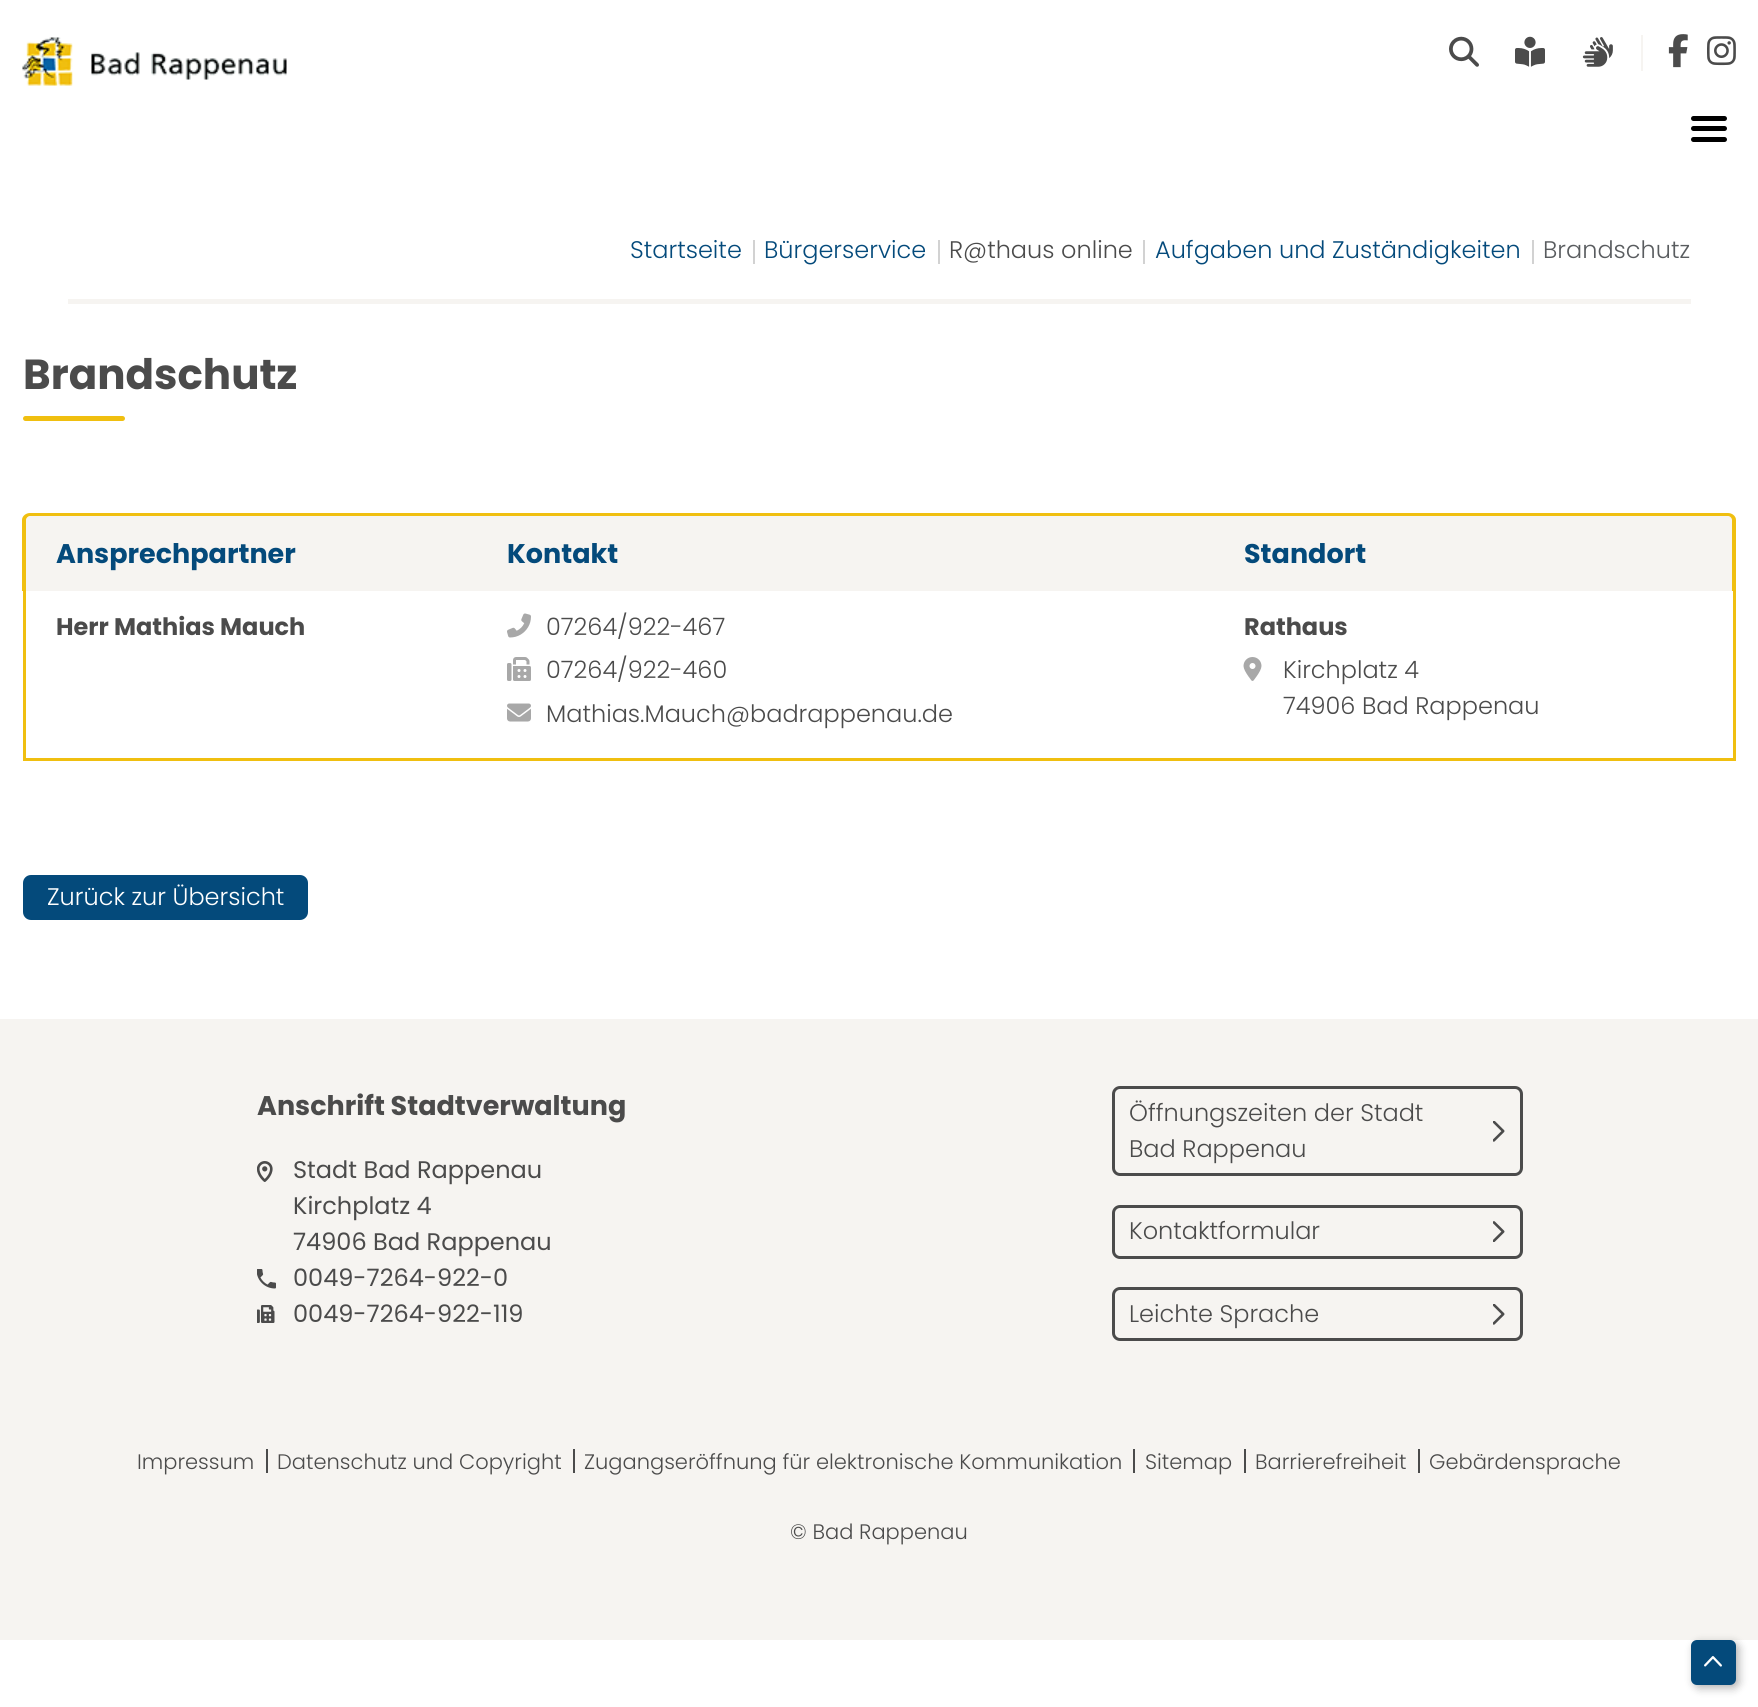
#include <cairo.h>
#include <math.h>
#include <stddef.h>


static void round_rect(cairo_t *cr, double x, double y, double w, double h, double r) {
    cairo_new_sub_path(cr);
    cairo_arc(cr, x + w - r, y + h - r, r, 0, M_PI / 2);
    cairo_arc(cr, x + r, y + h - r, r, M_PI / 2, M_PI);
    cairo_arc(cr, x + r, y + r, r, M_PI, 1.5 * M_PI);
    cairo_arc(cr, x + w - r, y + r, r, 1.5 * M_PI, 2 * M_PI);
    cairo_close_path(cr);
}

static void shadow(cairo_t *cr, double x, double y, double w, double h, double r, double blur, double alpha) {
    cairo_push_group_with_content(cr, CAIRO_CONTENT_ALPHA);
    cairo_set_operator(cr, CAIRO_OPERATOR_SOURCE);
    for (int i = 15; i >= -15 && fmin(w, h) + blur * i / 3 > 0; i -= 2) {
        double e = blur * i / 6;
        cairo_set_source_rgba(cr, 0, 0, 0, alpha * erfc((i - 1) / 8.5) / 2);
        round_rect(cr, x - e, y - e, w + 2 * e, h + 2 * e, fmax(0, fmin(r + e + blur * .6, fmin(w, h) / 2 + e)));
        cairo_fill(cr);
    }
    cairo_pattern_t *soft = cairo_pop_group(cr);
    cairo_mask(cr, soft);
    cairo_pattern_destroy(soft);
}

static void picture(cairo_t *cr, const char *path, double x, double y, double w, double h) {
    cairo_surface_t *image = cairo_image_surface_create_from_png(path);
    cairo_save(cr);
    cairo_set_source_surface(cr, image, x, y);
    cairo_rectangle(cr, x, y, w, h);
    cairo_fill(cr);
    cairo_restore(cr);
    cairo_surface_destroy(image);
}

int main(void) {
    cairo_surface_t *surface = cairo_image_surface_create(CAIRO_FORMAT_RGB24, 1758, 1707);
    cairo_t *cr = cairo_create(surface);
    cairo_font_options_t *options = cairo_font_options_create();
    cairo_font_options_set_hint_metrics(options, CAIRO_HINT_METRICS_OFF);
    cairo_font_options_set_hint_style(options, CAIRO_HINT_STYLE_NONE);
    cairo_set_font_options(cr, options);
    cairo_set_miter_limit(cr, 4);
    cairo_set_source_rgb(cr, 1, 1, 1);
    cairo_paint(cr);
    picture(cr, "img1.png", 1449, 36, 30, 31);
    picture(cr, "img2.png", 1515, 36, 30, 31);
    picture(cr, "img3.png", 1582, 37, 31, 30);
    cairo_set_source_rgb(cr, 0.961, 0.957, 0.945);
    cairo_rectangle(cr, 1641, 35, 2, 36);
    cairo_fill(cr);
    picture(cr, "img4.png", 1668, 34, 20, 34);
    picture(cr, "img5.png", 1707, 36, 29, 30);
    picture(cr, "img6.png", 22, 37, 265, 49);
    cairo_set_source_rgb(cr, 0, 0, 0);
    round_rect(cr, 1691, 116, 36, 5, 2.5);
    cairo_fill(cr);
    round_rect(cr, 1691, 126, 36, 5, 2.5);
    cairo_fill(cr);
    round_rect(cr, 1691, 137, 36, 5, 2.5);
    cairo_fill(cr);
    cairo_set_source_rgb(cr, 0.961, 0.957, 0.945);
    cairo_rectangle(cr, 68, 299, 1623, 5);
    cairo_fill(cr);
    cairo_select_font_face(cr, "Poppins Light", CAIRO_FONT_SLANT_NORMAL, CAIRO_FONT_WEIGHT_NORMAL);
    cairo_set_font_size(cr, 24);
    cairo_set_source_rgb(cr, 0.016, 0.29, 0.482);
    cairo_move_to(cr, 630, 258);
    cairo_show_text(cr, "Startseite");
    cairo_set_source_rgb(cr, 0.824, 0.824, 0.824);
    cairo_rectangle(cr, 753, 240, 2, 24);
    cairo_fill(cr);
    cairo_set_source_rgb(cr, 0.016, 0.29, 0.482);
    cairo_move_to(cr, 764, 258);
    cairo_show_text(cr, "Bürgerservice");
    cairo_set_source_rgb(cr, 0.824, 0.824, 0.824);
    cairo_rectangle(cr, 938, 240, 2, 24);
    cairo_fill(cr);
    cairo_set_source_rgb(cr, 0.294, 0.294, 0.294);
    cairo_move_to(cr, 949, 258);
    cairo_show_text(cr, "R@thaus online");
    cairo_set_source_rgb(cr, 0.824, 0.824, 0.824);
    cairo_rectangle(cr, 1143, 240, 2, 24);
    cairo_fill(cr);
    cairo_set_source_rgb(cr, 0.016, 0.29, 0.482);
    cairo_move_to(cr, 1155, 258);
    cairo_show_text(cr, "Aufgaben und Zuständigkeiten");
    cairo_set_source_rgb(cr, 0.824, 0.824, 0.824);
    cairo_rectangle(cr, 1532, 240, 2, 24);
    cairo_fill(cr);
    cairo_set_source_rgb(cr, 0.349, 0.361, 0.373);
    cairo_move_to(cr, 1543, 258);
    cairo_show_text(cr, "Brandschutz");
    cairo_select_font_face(cr, "Poppins", CAIRO_FONT_SLANT_NORMAL, CAIRO_FONT_WEIGHT_BOLD);
    cairo_set_font_size(cr, 42);
    cairo_set_source_rgb(cr, 0.294, 0.294, 0.294);
    cairo_move_to(cr, 23, 389);
    cairo_show_text(cr, "Brandschutz");
    cairo_set_source_rgb(cr, 0.941, 0.749, 0.063);
    round_rect(cr, 23, 416, 102, 5, 2.5);
    cairo_fill(cr);
    cairo_set_source_rgb(cr, 0.961, 0.957, 0.945);
    cairo_new_path(cr);
    cairo_move_to(cr, 31, 516);
    cairo_line_to(cr, 477, 516);
    cairo_line_to(cr, 477, 591);
    cairo_line_to(cr, 26, 591);
    cairo_line_to(cr, 26, 521);
    cairo_curve_to(cr, 26, 518, 28, 516, 31, 516);
    cairo_close_path(cr);
    cairo_fill(cr);
    cairo_set_source_rgb(cr, 0.941, 0.749, 0.063);
    cairo_set_fill_rule(cr, CAIRO_FILL_RULE_EVEN_ODD);
    cairo_new_path(cr);
    cairo_move_to(cr, 30, 513);
    cairo_line_to(cr, 477, 513);
    cairo_line_to(cr, 477, 591);
    cairo_line_to(cr, 22, 591);
    cairo_line_to(cr, 22, 520);
    cairo_curve_to(cr, 22, 516, 26, 513, 30, 513);
    cairo_close_path(cr);
    cairo_move_to(cr, 30, 516);
    cairo_line_to(cr, 477, 516);
    cairo_line_to(cr, 477, 591);
    cairo_line_to(cr, 26, 591);
    cairo_line_to(cr, 26, 520);
    cairo_curve_to(cr, 26, 518, 28, 516, 30, 516);
    cairo_close_path(cr);
    cairo_fill(cr);
    cairo_set_font_size(cr, 27);
    cairo_set_source_rgb(cr, 0.016, 0.29, 0.482);
    cairo_move_to(cr, 56, 563);
    cairo_show_text(cr, "Ansprechpartner");
    cairo_set_source_rgb(cr, 0.961, 0.957, 0.945);
    cairo_rectangle(cr, 477, 516, 737, 75);
    cairo_fill(cr);
    cairo_set_source_rgb(cr, 0.941, 0.749, 0.063);
    cairo_rectangle(cr, 477, 513, 737, 3);
    cairo_fill(cr);
    cairo_set_source_rgb(cr, 0.016, 0.29, 0.482);
    cairo_move_to(cr, 507, 563);
    cairo_show_text(cr, "Kontakt");
    cairo_set_source_rgb(cr, 0.961, 0.957, 0.945);
    cairo_new_path(cr);
    cairo_move_to(cr, 1214, 516);
    cairo_line_to(cr, 1728, 516);
    cairo_curve_to(cr, 1731, 516, 1733, 518, 1733, 521);
    cairo_line_to(cr, 1733, 591);
    cairo_line_to(cr, 1214, 591);
    cairo_close_path(cr);
    cairo_fill(cr);
    cairo_set_source_rgb(cr, 0.941, 0.749, 0.063);
    cairo_new_path(cr);
    cairo_move_to(cr, 1214, 513);
    cairo_line_to(cr, 1728, 513);
    cairo_curve_to(cr, 1732, 513, 1736, 516, 1736, 520);
    cairo_line_to(cr, 1736, 591);
    cairo_line_to(cr, 1214, 591);
    cairo_close_path(cr);
    cairo_move_to(cr, 1214, 516);
    cairo_line_to(cr, 1728, 516);
    cairo_curve_to(cr, 1730, 516, 1732, 518, 1732, 520);
    cairo_line_to(cr, 1732, 591);
    cairo_line_to(cr, 1214, 591);
    cairo_close_path(cr);
    cairo_fill(cr);
    cairo_set_source_rgb(cr, 0.016, 0.29, 0.482);
    cairo_move_to(cr, 1244, 563);
    cairo_show_text(cr, "Standort");
    cairo_set_source_rgb(cr, 0.941, 0.749, 0.063);
    cairo_rectangle(cr, 23, 758, 1191, 3);
    cairo_fill(cr);
    cairo_rectangle(cr, 23, 591, 3, 170);
    cairo_fill(cr);
    cairo_set_font_size(cr, 24);
    cairo_set_source_rgb(cr, 0.294, 0.294, 0.294);
    cairo_move_to(cr, 56, 635);
    cairo_show_text(cr, "Herr Mathias Mauch");
    picture(cr, "img7.png", 507, 613, 24, 25);
    cairo_select_font_face(cr, "Poppins Light", CAIRO_FONT_SLANT_NORMAL, CAIRO_FONT_WEIGHT_NORMAL);
    cairo_move_to(cr, 546, 635);
    cairo_show_text(cr, "07264/922-467");
    picture(cr, "img8.png", 507, 657, 24, 24);
    cairo_move_to(cr, 546, 678);
    cairo_show_text(cr, "07264/922-460");
    picture(cr, "img9.png", 507, 703, 24, 19);
    cairo_move_to(cr, 546, 722);
    cairo_show_text(cr, "Mathias.Mauch@badrappenau.de");
    cairo_set_source_rgb(cr, 0.941, 0.749, 0.063);
    cairo_rectangle(cr, 1733, 591, 3, 170);
    cairo_fill(cr);
    cairo_rectangle(cr, 1214, 758, 522, 3);
    cairo_fill(cr);
    cairo_select_font_face(cr, "Poppins", CAIRO_FONT_SLANT_NORMAL, CAIRO_FONT_WEIGHT_BOLD);
    cairo_set_source_rgb(cr, 0.294, 0.294, 0.294);
    cairo_move_to(cr, 1244, 635);
    cairo_show_text(cr, "Rathaus");
    picture(cr, "img10.png", 1243, 657, 19, 24);
    cairo_select_font_face(cr, "Poppins Light", CAIRO_FONT_SLANT_NORMAL, CAIRO_FONT_WEIGHT_NORMAL);
    cairo_move_to(cr, 1283, 678);
    cairo_show_text(cr, "Kirchplatz 4");
    cairo_move_to(cr, 1283, 714);
    cairo_show_text(cr, "74906 Bad Rappenau");
    cairo_set_source_rgb(cr, 0.016, 0.29, 0.482);
    round_rect(cr, 24.5, 876.5, 282, 42, 6.5);
    cairo_fill_preserve(cr);
    cairo_set_line_width(cr, 3);
    cairo_stroke(cr);
    cairo_set_source_rgb(cr, 1, 1, 1);
    cairo_move_to(cr, 47, 905);
    cairo_show_text(cr, "Zurück zur Übersicht");
    cairo_set_source_rgb(cr, 0.961, 0.957, 0.945);
    cairo_rectangle(cr, 0, 1019, 1758, 621);
    cairo_fill(cr);
    cairo_select_font_face(cr, "Poppins", CAIRO_FONT_SLANT_NORMAL, CAIRO_FONT_WEIGHT_BOLD);
    cairo_set_font_size(cr, 27);
    cairo_set_source_rgb(cr, 0.294, 0.294, 0.294);
    cairo_move_to(cr, 257, 1115);
    cairo_show_text(cr, "Anschrift Stadtverwaltung");
    picture(cr, "img11.png", 257, 1161, 16, 21);
    cairo_select_font_face(cr, "Poppins", CAIRO_FONT_SLANT_NORMAL, CAIRO_FONT_WEIGHT_NORMAL);
    cairo_set_font_size(cr, 24);
    cairo_move_to(cr, 293, 1178);
    cairo_show_text(cr, "Stadt Bad Rappenau");
    cairo_move_to(cr, 293, 1214);
    cairo_show_text(cr, "Kirchplatz 4");
    cairo_move_to(cr, 293, 1250);
    cairo_show_text(cr, "74906 Bad Rappenau");
    picture(cr, "img12.png", 257, 1269, 19, 20);
    cairo_move_to(cr, 293, 1286);
    cairo_show_text(cr, "0049-7264-922-0");
    picture(cr, "img13.png", 257, 1305, 18, 18);
    cairo_move_to(cr, 293, 1322);
    cairo_show_text(cr, "0049-7264-922-119");
    round_rect(cr, 1113.5, 1087.5, 408, 87, 6.5);
    cairo_stroke(cr);
    cairo_select_font_face(cr, "Poppins Light", CAIRO_FONT_SLANT_NORMAL, CAIRO_FONT_WEIGHT_NORMAL);
    cairo_move_to(cr, 1129, 1121);
    cairo_show_text(cr, "Öffnungszeiten der Stadt");
    picture(cr, "img14.png", 1493, 1121, 12, 21);
    cairo_move_to(cr, 1129, 1157);
    cairo_show_text(cr, "Bad Rappenau");
    round_rect(cr, 1113.5, 1206.5, 408, 51, 6.5);
    cairo_stroke(cr);
    cairo_move_to(cr, 1129, 1239);
    cairo_show_text(cr, "Kontaktformular");
    picture(cr, "img15.png", 1493, 1221, 12, 21);
    round_rect(cr, 1113.5, 1288.5, 408, 51, 6.5);
    cairo_stroke(cr);
    cairo_move_to(cr, 1129, 1322);
    cairo_show_text(cr, "Leichte Sprache");
    picture(cr, "img14.png", 1493, 1304, 12, 21);
    cairo_set_font_size(cr, 21);
    cairo_move_to(cr, 137, 1469);
    cairo_show_text(cr, "Impressum");
    cairo_rectangle(cr, 266, 1449, 2, 24);
    cairo_fill(cr);
    cairo_move_to(cr, 277, 1469);
    cairo_show_text(cr, "Datenschutz und Copyright");
    cairo_rectangle(cr, 573, 1449, 2, 24);
    cairo_fill(cr);
    cairo_move_to(cr, 584, 1469);
    cairo_show_text(cr, "Zugangseröffnung für elektronische Kommunikation");
    cairo_rectangle(cr, 1133, 1449, 2, 24);
    cairo_fill(cr);
    cairo_move_to(cr, 1145, 1469);
    cairo_show_text(cr, "Sitemap");
    cairo_rectangle(cr, 1244, 1449, 2, 24);
    cairo_fill(cr);
    cairo_move_to(cr, 1255, 1469);
    cairo_show_text(cr, "Barrierefreiheit");
    cairo_rectangle(cr, 1418, 1449, 2, 24);
    cairo_fill(cr);
    cairo_move_to(cr, 1429, 1469);
    cairo_show_text(cr, "Gebärdensprache");
    cairo_move_to(cr, 790, 1539);
    cairo_show_text(cr, "© Bad Rappenau");
    cairo_set_source_rgb(cr, 0, 0, 0);
    shadow(cr, 1694, 1643, 45, 45, 6, 4.5, 0.3);
    cairo_set_source_rgb(cr, 0.016, 0.29, 0.482);
    round_rect(cr, 1691, 1640, 45, 45, 6);
    cairo_fill(cr);
    picture(cr, "img16.png", 1704, 1656, 18, 11);
    cairo_surface_write_to_png(surface, "page.png");
    cairo_font_options_destroy(options);
    cairo_destroy(cr);
    cairo_surface_destroy(surface);
    return 0;
}
